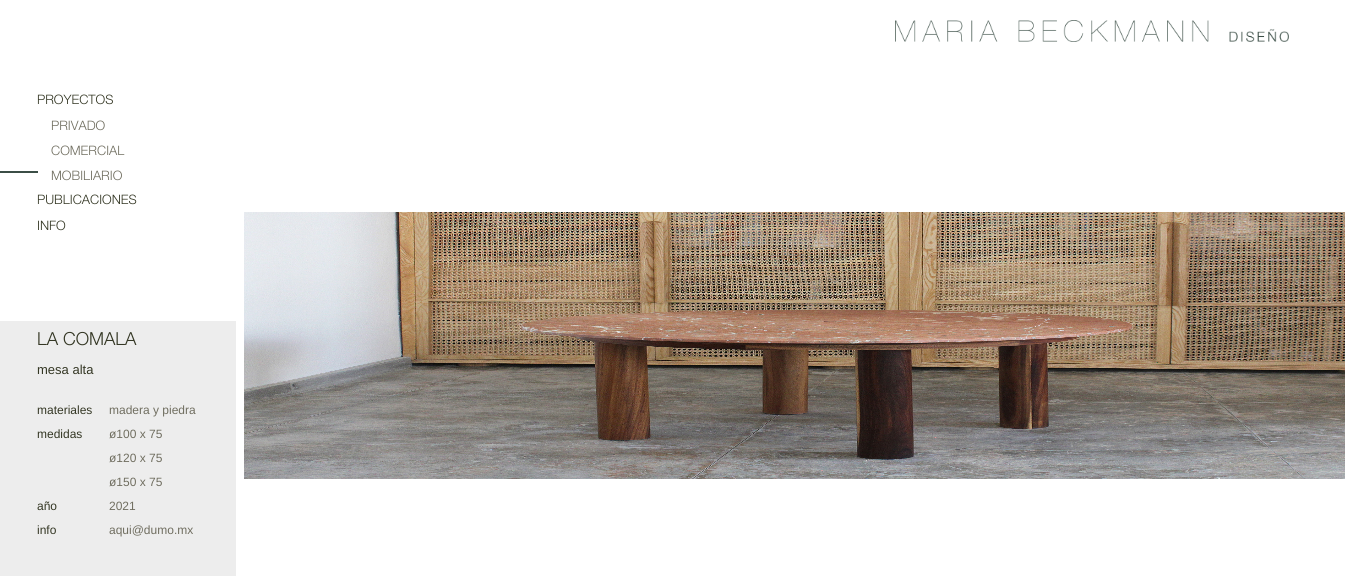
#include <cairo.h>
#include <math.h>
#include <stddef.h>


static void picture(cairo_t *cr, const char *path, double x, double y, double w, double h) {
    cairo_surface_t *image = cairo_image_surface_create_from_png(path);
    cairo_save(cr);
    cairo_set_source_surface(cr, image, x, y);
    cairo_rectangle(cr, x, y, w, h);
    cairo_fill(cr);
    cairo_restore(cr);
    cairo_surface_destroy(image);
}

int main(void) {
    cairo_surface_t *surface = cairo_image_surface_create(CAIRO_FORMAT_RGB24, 1346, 576);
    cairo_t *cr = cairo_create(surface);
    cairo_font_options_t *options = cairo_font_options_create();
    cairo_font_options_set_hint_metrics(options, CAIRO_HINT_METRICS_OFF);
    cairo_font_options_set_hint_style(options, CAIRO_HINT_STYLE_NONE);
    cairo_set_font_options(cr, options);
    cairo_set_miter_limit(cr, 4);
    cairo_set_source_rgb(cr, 1, 1, 1);
    cairo_paint(cr);
    picture(cr, "img1.png", 895, 20, 394, 22);
    cairo_select_font_face(cr, "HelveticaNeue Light", CAIRO_FONT_SLANT_NORMAL, CAIRO_FONT_WEIGHT_NORMAL);
    cairo_set_font_size(cr, 13);
    cairo_set_source_rgb(cr, 0.204, 0.216, 0.141);
    cairo_move_to(cr, 37, 104);
    cairo_show_text(cr, "PROYECTOS");
    cairo_set_source_rgb(cr, 0.439, 0.431, 0.376);
    cairo_move_to(cr, 51, 130);
    cairo_show_text(cr, "PRIVADO");
    cairo_move_to(cr, 51, 155);
    cairo_show_text(cr, "COMERCIAL");
    cairo_set_source_rgb(cr, 0.231, 0.306, 0.275);
    cairo_rectangle(cr, 0, 171, 38, 2);
    cairo_fill(cr);
    cairo_set_source_rgb(cr, 0.439, 0.431, 0.376);
    cairo_move_to(cr, 51, 180);
    cairo_show_text(cr, "MOBILIARIO");
    cairo_set_source_rgb(cr, 0.204, 0.216, 0.141);
    cairo_move_to(cr, 37, 204);
    cairo_show_text(cr, "PUBLICACIONES");
    cairo_move_to(cr, 37, 230);
    cairo_show_text(cr, "INFO");
    cairo_set_source_rgb(cr, 0.929, 0.929, 0.929);
    cairo_rectangle(cr, 0, 321, 236, 255);
    cairo_fill(cr);
    cairo_set_font_size(cr, 18);
    cairo_set_source_rgb(cr, 0.204, 0.216, 0.141);
    cairo_move_to(cr, 37, 345);
    cairo_show_text(cr, "LA COMALA");
    cairo_select_font_face(cr, "Liberation Sans", CAIRO_FONT_SLANT_NORMAL, CAIRO_FONT_WEIGHT_NORMAL);
    cairo_set_font_size(cr, 13);
    cairo_move_to(cr, 37, 374);
    cairo_show_text(cr, "mesa alta");
    cairo_set_font_size(cr, 12);
    cairo_move_to(cr, 37, 414);
    cairo_show_text(cr, "materiales");
    cairo_set_source_rgb(cr, 0.439, 0.431, 0.376);
    cairo_move_to(cr, 109, 414);
    cairo_show_text(cr, "madera y piedra");
    cairo_set_source_rgb(cr, 0.204, 0.216, 0.141);
    cairo_move_to(cr, 37, 438);
    cairo_show_text(cr, "medidas");
    cairo_set_source_rgb(cr, 0.439, 0.431, 0.376);
    cairo_move_to(cr, 109, 438);
    cairo_show_text(cr, "ø100 x 75");
    cairo_move_to(cr, 109, 462);
    cairo_show_text(cr, "ø120 x 75");
    cairo_move_to(cr, 109, 486);
    cairo_show_text(cr, "ø150 x 75");
    cairo_set_source_rgb(cr, 0.204, 0.216, 0.141);
    cairo_move_to(cr, 37, 510);
    cairo_show_text(cr, "año");
    cairo_set_source_rgb(cr, 0.439, 0.431, 0.376);
    cairo_move_to(cr, 109, 510);
    cairo_show_text(cr, "2021");
    cairo_set_source_rgb(cr, 0.204, 0.216, 0.141);
    cairo_move_to(cr, 37, 534);
    cairo_show_text(cr, "info");
    cairo_set_source_rgb(cr, 0.439, 0.431, 0.376);
    cairo_move_to(cr, 109, 534);
    cairo_show_text(cr, "aqui@dumo.mx");
    picture(cr, "img2.png", 244, 212, 1101, 267);
    cairo_surface_write_to_png(surface, "page.png");
    cairo_font_options_destroy(options);
    cairo_destroy(cr);
    cairo_surface_destroy(surface);
    return 0;
}
